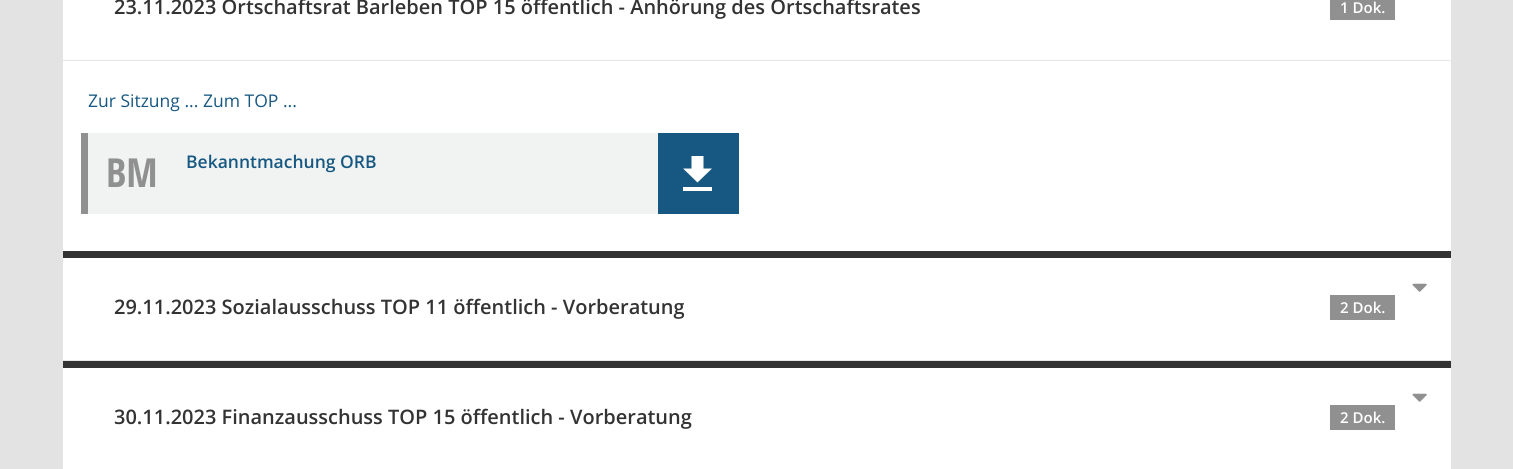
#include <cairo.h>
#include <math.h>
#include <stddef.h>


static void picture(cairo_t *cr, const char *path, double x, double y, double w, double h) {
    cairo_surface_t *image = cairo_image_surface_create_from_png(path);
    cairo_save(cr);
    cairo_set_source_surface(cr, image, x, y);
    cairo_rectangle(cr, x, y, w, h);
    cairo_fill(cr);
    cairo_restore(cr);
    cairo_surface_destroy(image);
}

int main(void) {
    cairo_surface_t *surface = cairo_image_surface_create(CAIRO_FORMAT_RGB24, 1513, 469);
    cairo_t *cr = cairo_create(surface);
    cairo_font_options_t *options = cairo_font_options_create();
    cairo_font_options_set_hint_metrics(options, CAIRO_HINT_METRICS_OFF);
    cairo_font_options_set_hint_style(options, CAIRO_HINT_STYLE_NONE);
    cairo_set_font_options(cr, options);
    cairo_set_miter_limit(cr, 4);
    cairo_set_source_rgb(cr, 0.89, 0.89, 0.89);
    cairo_paint(cr);
    cairo_set_source_rgb(cr, 1, 1, 1);
    cairo_rectangle(cr, 63, 0, 1388, 251);
    cairo_fill(cr);
    cairo_set_source_rgb(cr, 0.2, 0.2, 0.2);
    cairo_rectangle(cr, 63, 251, 1388, 7);
    cairo_fill(cr);
    cairo_set_source_rgb(cr, 0.902, 0.902, 0.902);
    cairo_rectangle(cr, 63, 60, 1388, 1);
    cairo_fill(cr);
    cairo_select_font_face(cr, "Open Sans SemiBold", CAIRO_FONT_SLANT_NORMAL, CAIRO_FONT_WEIGHT_NORMAL);
    cairo_set_font_size(cr, 20);
    cairo_set_source_rgb(cr, 0.2, 0.2, 0.2);
    cairo_move_to(cr, 114, 14);
    cairo_show_text(cr, "23.11.2023 Ortschaftsrat Barleben TOP 15 öffentlich - Anhörung des Ortschaftsrates");
    cairo_set_source_rgb(cr, 0.565, 0.565, 0.565);
    cairo_rectangle(cr, 1330, 0, 65, 20);
    cairo_fill(cr);
    cairo_set_font_size(cr, 15);
    cairo_set_source_rgb(cr, 1, 1, 1);
    cairo_move_to(cr, 1340, 13);
    cairo_show_text(cr, "1 Dok.");
    cairo_select_font_face(cr, "Open Sans", CAIRO_FONT_SLANT_NORMAL, CAIRO_FONT_WEIGHT_NORMAL);
    cairo_set_font_size(cr, 17.5);
    cairo_set_source_rgb(cr, 0.09, 0.345, 0.51);
    cairo_move_to(cr, 88, 107);
    cairo_show_text(cr, "Zur Sitzung ... Zum TOP ...");
    cairo_set_source_rgb(cr, 0.941, 0.953, 0.949);
    cairo_rectangle(cr, 88, 133, 570, 81);
    cairo_fill(cr);
    cairo_set_source_rgb(cr, 0.565, 0.565, 0.565);
    cairo_rectangle(cr, 81, 133, 7, 81);
    cairo_fill(cr);
    cairo_select_font_face(cr, "Open Sans Condensed", CAIRO_FONT_SLANT_NORMAL, CAIRO_FONT_WEIGHT_BOLD);
    cairo_set_font_size(cr, 40);
    cairo_move_to(cr, 106, 187);
    cairo_show_text(cr, "BM");
    cairo_select_font_face(cr, "Open Sans SemiBold", CAIRO_FONT_SLANT_NORMAL, CAIRO_FONT_WEIGHT_NORMAL);
    cairo_set_font_size(cr, 17.5);
    cairo_set_source_rgb(cr, 0.09, 0.345, 0.51);
    cairo_move_to(cr, 186, 168);
    cairo_show_text(cr, "Bekanntmachung ORB");
    cairo_rectangle(cr, 658, 133, 81, 81);
    cairo_fill(cr);
    cairo_set_source_rgb(cr, 1, 1, 1);
    cairo_new_path(cr);
    cairo_move_to(cr, 712, 168.5);
    cairo_line_to(cr, 703.5, 168.5);
    cairo_line_to(cr, 703.5, 156);
    cairo_line_to(cr, 691.5, 156);
    cairo_line_to(cr, 691.5, 168.5);
    cairo_line_to(cr, 683, 168.5);
    cairo_line_to(cr, 697.5, 182.5);
    cairo_close_path(cr);
    cairo_move_to(cr, 683, 187);
    cairo_line_to(cr, 683, 191);
    cairo_line_to(cr, 712, 191);
    cairo_line_to(cr, 712, 187);
    cairo_close_path(cr);
    cairo_fill(cr);
    cairo_rectangle(cr, 63, 258, 1388, 102);
    cairo_fill(cr);
    cairo_set_source_rgb(cr, 0.2, 0.2, 0.2);
    cairo_rectangle(cr, 63, 361, 1388, 7);
    cairo_fill(cr);
    cairo_set_source_rgb(cr, 0.902, 0.902, 0.902);
    cairo_rectangle(cr, 63, 360, 1388, 1);
    cairo_fill(cr);
    picture(cr, "img1.png", 1412, 283, 15, 9);
    cairo_set_font_size(cr, 20);
    cairo_set_source_rgb(cr, 0.2, 0.2, 0.2);
    cairo_move_to(cr, 114, 314);
    cairo_show_text(cr, "29.11.2023 Sozialausschuss TOP 11 öffentlich - Vorberatung");
    cairo_set_source_rgb(cr, 0.565, 0.565, 0.565);
    cairo_rectangle(cr, 1330, 295, 65, 25);
    cairo_fill(cr);
    cairo_set_font_size(cr, 15);
    cairo_set_source_rgb(cr, 1, 1, 1);
    cairo_move_to(cr, 1340, 313);
    cairo_show_text(cr, "2 Dok.");
    cairo_rectangle(cr, 63, 368, 1388, 101);
    cairo_fill(cr);
    picture(cr, "img1.png", 1412, 393, 15, 9);
    cairo_set_font_size(cr, 20);
    cairo_set_source_rgb(cr, 0.2, 0.2, 0.2);
    cairo_move_to(cr, 114, 424);
    cairo_show_text(cr, "30.11.2023 Finanzausschuss TOP 15 öffentlich - Vorberatung");
    cairo_set_source_rgb(cr, 0.565, 0.565, 0.565);
    cairo_rectangle(cr, 1330, 405, 65, 25);
    cairo_fill(cr);
    cairo_set_font_size(cr, 15);
    cairo_set_source_rgb(cr, 1, 1, 1);
    cairo_move_to(cr, 1340, 423);
    cairo_show_text(cr, "2 Dok.");
    cairo_surface_write_to_png(surface, "page.png");
    cairo_font_options_destroy(options);
    cairo_destroy(cr);
    cairo_surface_destroy(surface);
    return 0;
}
